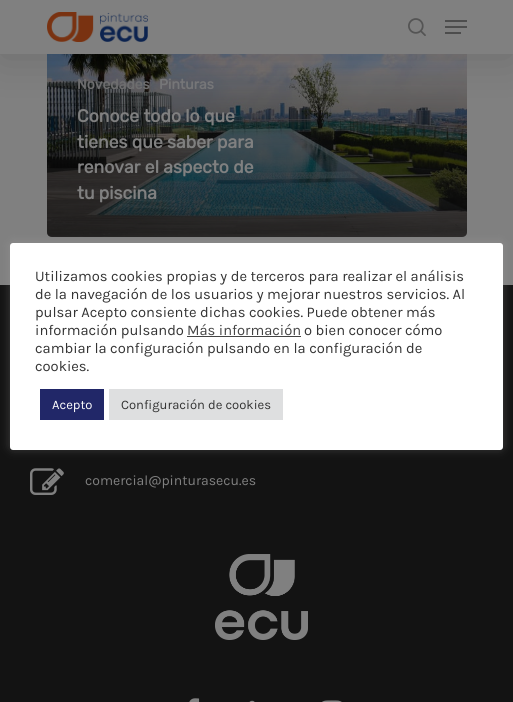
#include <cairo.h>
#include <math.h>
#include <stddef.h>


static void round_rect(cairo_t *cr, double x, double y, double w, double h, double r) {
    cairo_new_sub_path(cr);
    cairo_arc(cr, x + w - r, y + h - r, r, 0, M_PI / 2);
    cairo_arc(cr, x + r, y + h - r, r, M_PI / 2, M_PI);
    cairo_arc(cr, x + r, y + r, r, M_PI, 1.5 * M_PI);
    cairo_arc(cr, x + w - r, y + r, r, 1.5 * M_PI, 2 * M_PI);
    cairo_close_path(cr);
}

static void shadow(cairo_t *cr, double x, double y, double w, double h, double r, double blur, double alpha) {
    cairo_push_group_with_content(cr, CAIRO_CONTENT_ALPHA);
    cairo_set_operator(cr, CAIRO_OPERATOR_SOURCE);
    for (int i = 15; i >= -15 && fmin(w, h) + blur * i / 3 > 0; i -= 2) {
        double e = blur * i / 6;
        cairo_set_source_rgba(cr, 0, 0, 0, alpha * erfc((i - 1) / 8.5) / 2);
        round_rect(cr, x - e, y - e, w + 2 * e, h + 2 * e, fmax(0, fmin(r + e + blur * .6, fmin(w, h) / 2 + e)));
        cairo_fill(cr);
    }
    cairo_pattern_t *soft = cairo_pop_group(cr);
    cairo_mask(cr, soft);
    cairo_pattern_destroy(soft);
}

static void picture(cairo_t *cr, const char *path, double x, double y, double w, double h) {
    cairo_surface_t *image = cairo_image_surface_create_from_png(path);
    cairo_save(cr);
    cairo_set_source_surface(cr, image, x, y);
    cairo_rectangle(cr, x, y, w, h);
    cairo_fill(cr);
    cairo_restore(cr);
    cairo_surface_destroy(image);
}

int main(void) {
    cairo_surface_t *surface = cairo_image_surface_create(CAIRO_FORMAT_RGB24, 513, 702);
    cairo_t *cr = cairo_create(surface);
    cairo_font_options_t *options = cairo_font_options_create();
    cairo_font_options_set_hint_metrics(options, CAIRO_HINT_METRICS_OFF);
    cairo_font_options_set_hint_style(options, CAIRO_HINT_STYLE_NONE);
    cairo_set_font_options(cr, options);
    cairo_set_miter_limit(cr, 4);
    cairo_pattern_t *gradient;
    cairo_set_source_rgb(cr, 0.502, 0.502, 0.502);
    cairo_paint(cr);
    picture(cr, "img3.png", 47, 54, 420, 183);
    gradient = cairo_pattern_create_linear(258, 63, 258, 238);
    cairo_pattern_add_color_stop_rgba(gradient, 0, 0.071, 0.071, 0.071, 0);
    cairo_pattern_add_color_stop_rgba(gradient, 1, 0.071, 0.071, 0.071, 0.65);
    cairo_set_source(cr, gradient);
    cairo_pattern_destroy(gradient);
    cairo_new_path(cr);
    cairo_move_to(cr, 47, 63);
    cairo_line_to(cr, 467, 63);
    cairo_line_to(cr, 467, 232);
    cairo_curve_to(cr, 467, 235, 465, 237, 462, 237);
    cairo_line_to(cr, 52, 237);
    cairo_curve_to(cr, 49, 237, 47, 235, 47, 232);
    cairo_close_path(cr);
    cairo_fill(cr);
    cairo_set_source_rgb(cr, 0, 0, 0);
    shadow(cr, 0, 3, 513, 54, 0, 22.5, 0.15);
    cairo_set_source_rgb(cr, 0.502, 0.502, 0.502);
    cairo_rectangle(cr, 0, 0, 513, 54);
    cairo_fill(cr);
    picture(cr, "img1.png", 47, 12, 101, 30);
    picture(cr, "img2.png", 408, 18, 18, 18);
    cairo_set_source_rgb(cr, 0.302, 0.302, 0.302);
    cairo_rectangle(cr, 445, 20, 22, 2);
    cairo_fill(cr);
    cairo_rectangle(cr, 445, 32, 16, 2);
    cairo_fill(cr);
    cairo_rectangle(cr, 445, 26, 22, 2);
    cairo_fill(cr);
    cairo_select_font_face(cr, "Rubik", CAIRO_FONT_SLANT_NORMAL, CAIRO_FONT_WEIGHT_BOLD);
    cairo_set_font_size(cr, 14);
    cairo_set_source_rgb(cr, 0.431, 0.431, 0.435);
    cairo_move_to(cr, 77, 89);
    cairo_show_text(cr, "Novedades");
    cairo_set_source_rgb(cr, 0.463, 0.463, 0.471);
    cairo_move_to(cr, 159, 89);
    cairo_show_text(cr, "Pinturas");
    cairo_set_font_size(cr, 17.6);
    cairo_set_source_rgb(cr, 0.502, 0.502, 0.502);
    cairo_move_to(cr, 77, 122);
    cairo_show_text(cr, "Conoce todo lo que");
    cairo_move_to(cr, 77, 148);
    cairo_show_text(cr, "tienes que saber para");
    cairo_move_to(cr, 77, 173);
    cairo_show_text(cr, "renovar el aspecto de");
    cairo_move_to(cr, 77, 199);
    cairo_show_text(cr, "tu piscina");
    cairo_set_source_rgb(cr, 0.075, 0.075, 0.075);
    cairo_rectangle(cr, 0, 285, 513, 417);
    cairo_fill(cr);
    picture(cr, "img4.png", 30, 468, 34, 27);
    cairo_select_font_face(cr, "Karla", CAIRO_FONT_SLANT_NORMAL, CAIRO_FONT_WEIGHT_NORMAL);
    cairo_set_font_size(cr, 14);
    cairo_set_source_rgb(cr, 0.502, 0.502, 0.502);
    cairo_move_to(cr, 85, 485);
    cairo_show_text(cr, "comercial@pinturasecu.es");
    picture(cr, "img5.png", 215, 554, 93, 86);
    picture(cr, "img6.png", 189, 698, 11, 4);
    picture(cr, "img7.png", 249, 700, 6, 2);
    picture(cr, "img8.png", 322, 700, 20, 2);
    cairo_set_source_rgb(cr, 0.675, 0.671, 0.671);
    shadow(cr, 10, 242, 493, 207, 3, 5, 0.3);
    cairo_set_source_rgb(cr, 1, 1, 1);
    round_rect(cr, 10, 243, 493, 207, 3);
    cairo_fill(cr);
    cairo_set_font_size(cr, 14.7);
    cairo_set_source_rgb(cr, 0.2, 0.2, 0.2);
    cairo_move_to(cr, 35, 281);
    cairo_show_text(cr, "Utilizamos cookies propias y de terceros para realizar el análisis");
    cairo_move_to(cr, 35, 299);
    cairo_show_text(cr, "de la navegación de los usuarios y mejorar nuestros servicios. Al");
    cairo_move_to(cr, 35, 317);
    cairo_show_text(cr, "pulsar Acepto consiente dichas cookies. Puede obtener más");
    cairo_move_to(cr, 35, 335);
    cairo_show_text(cr, "información pulsando");
    cairo_set_source_rgb(cr, 0.267, 0.267, 0.267);
    cairo_move_to(cr, 187, 335);
    cairo_show_text(cr, "Más información");
    cairo_rectangle(cr, 187, 336, 114, 1);
    cairo_fill(cr);
    cairo_set_source_rgb(cr, 0.2, 0.2, 0.2);
    cairo_move_to(cr, 304, 335);
    cairo_show_text(cr, "o bien conocer cómo");
    cairo_move_to(cr, 35, 353);
    cairo_show_text(cr, "cambiar la configuración pulsando en la configuración de");
    cairo_move_to(cr, 35, 371);
    cairo_show_text(cr, "cookies.");
    cairo_set_source_rgb(cr, 0.129, 0.153, 0.408);
    cairo_rectangle(cr, 40, 389, 64, 31);
    cairo_fill(cr);
    cairo_set_font_size(cr, 13);
    cairo_set_source_rgb(cr, 1, 1, 1);
    cairo_move_to(cr, 52, 409);
    cairo_show_text(cr, "Acepto");
    cairo_set_source_rgb(cr, 0.871, 0.875, 0.878);
    cairo_rectangle(cr, 109, 389, 174, 31);
    cairo_fill(cr);
    cairo_set_source_rgb(cr, 0.2, 0.2, 0.2);
    cairo_move_to(cr, 121, 409);
    cairo_show_text(cr, "Configuración de cookies");
    cairo_surface_write_to_png(surface, "page.png");
    cairo_font_options_destroy(options);
    cairo_destroy(cr);
    cairo_surface_destroy(surface);
    return 0;
}
